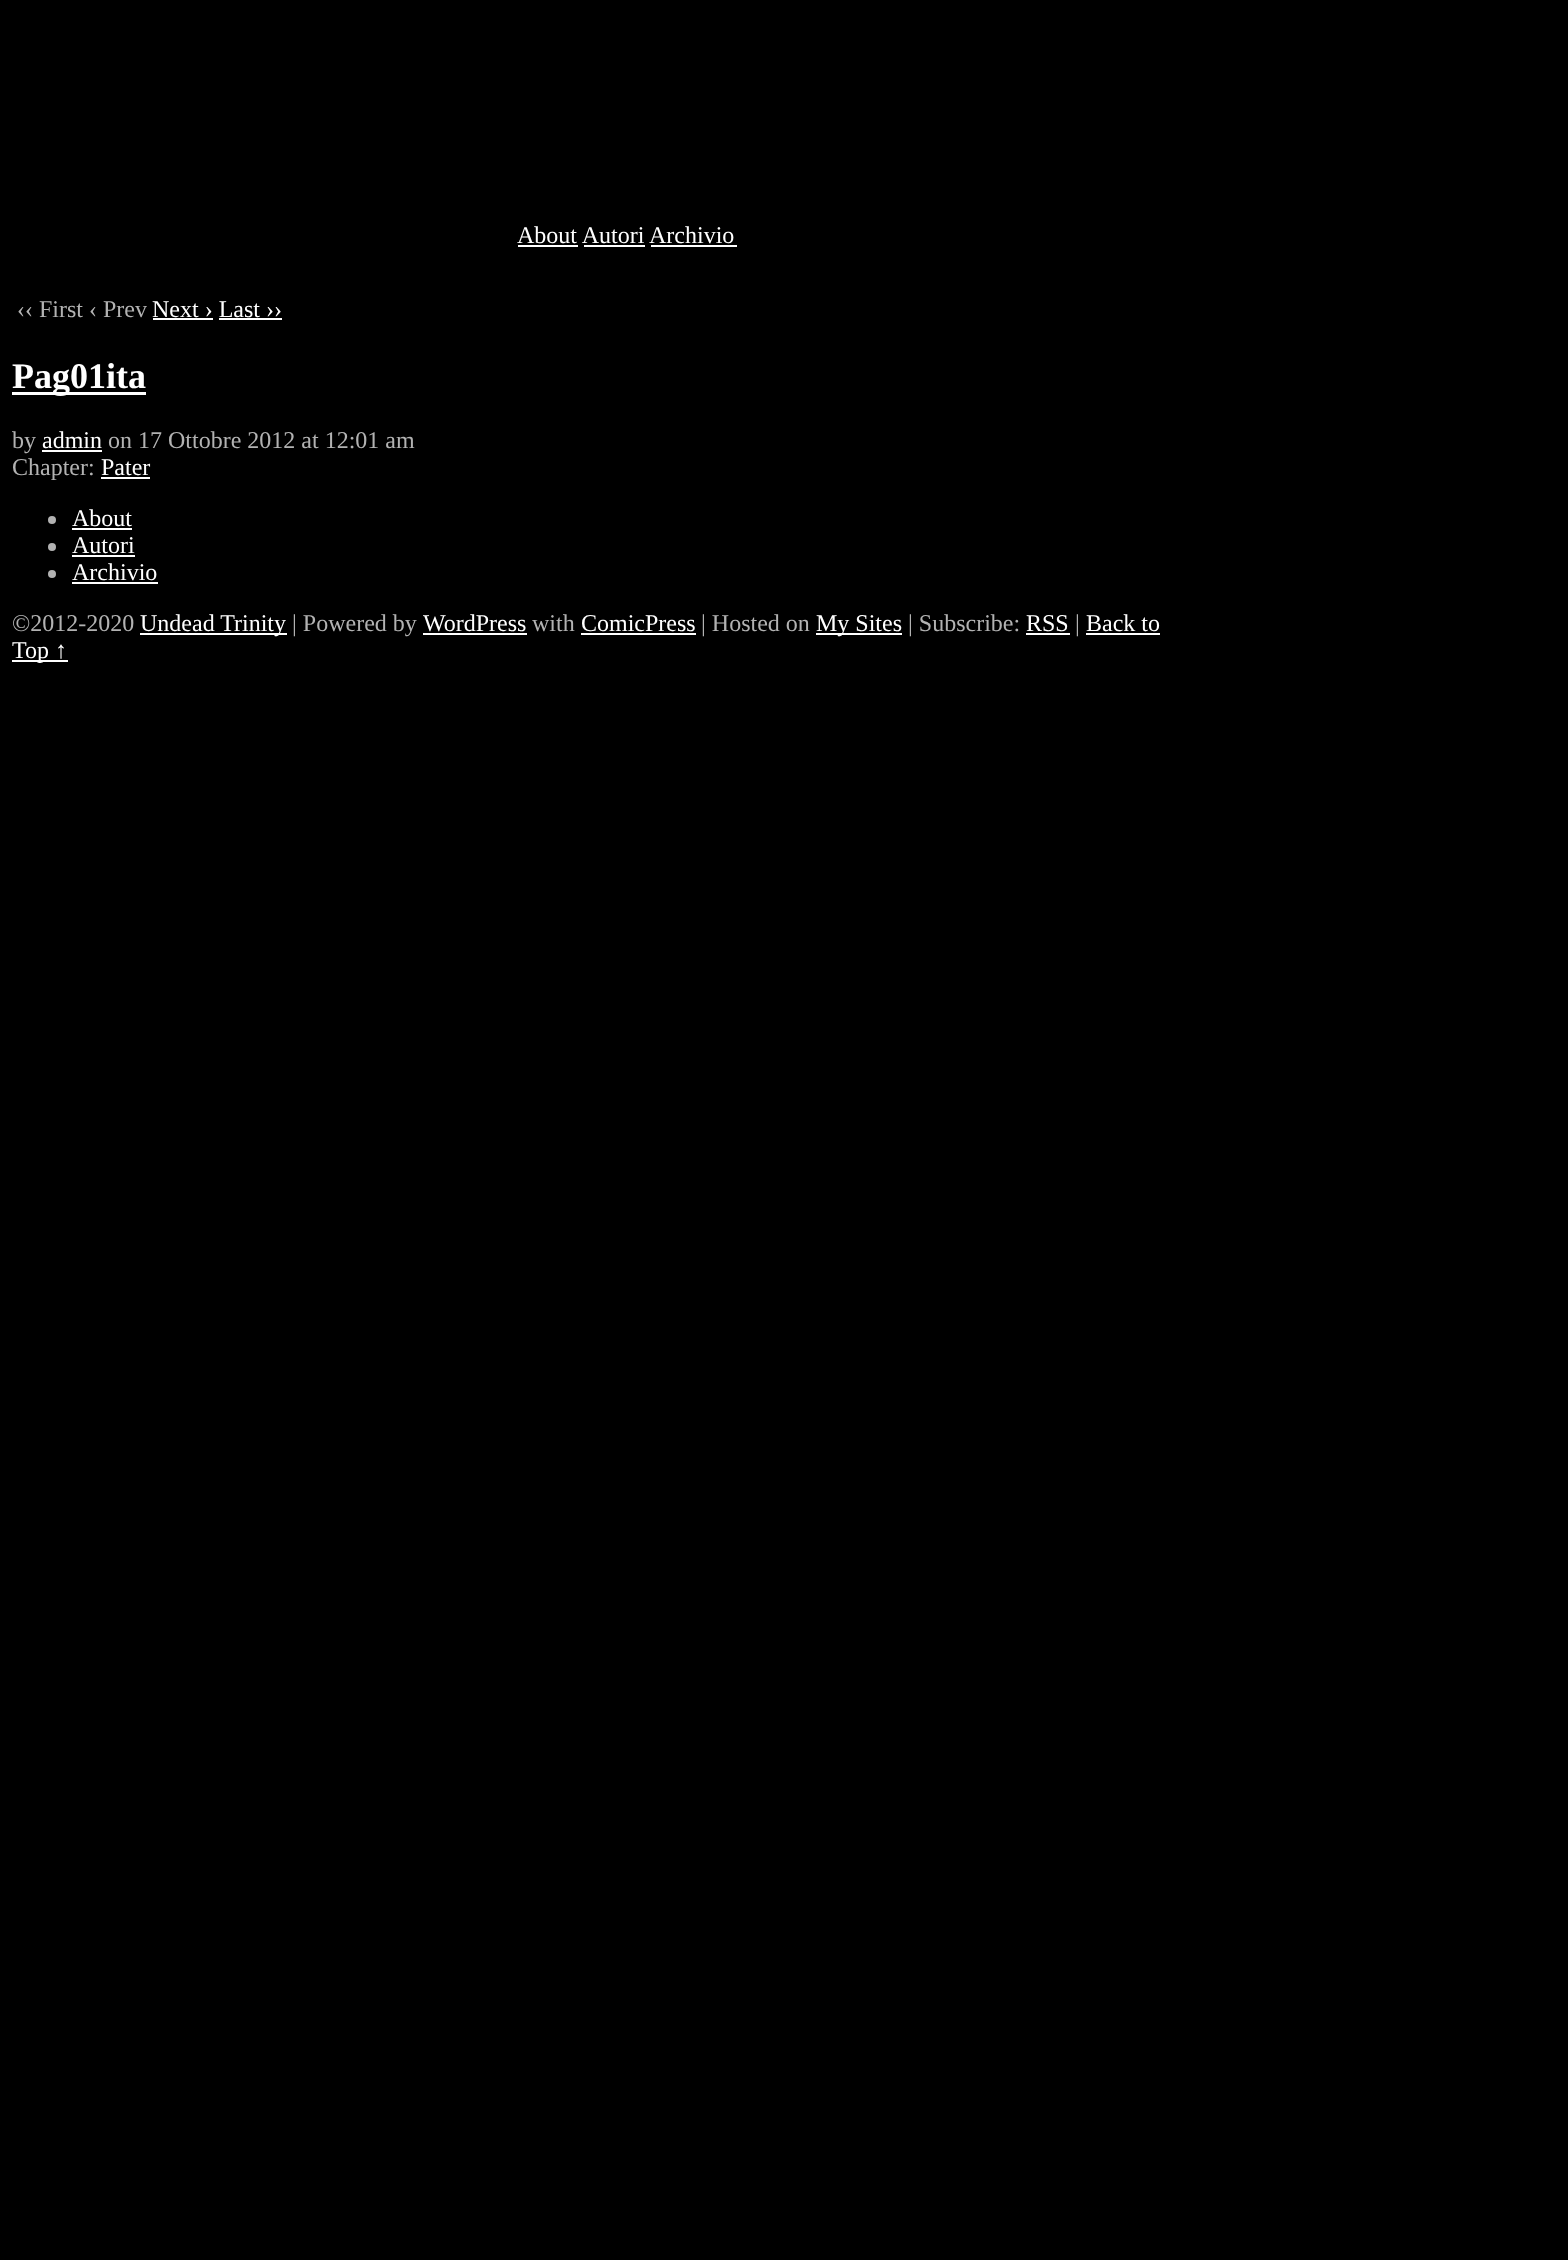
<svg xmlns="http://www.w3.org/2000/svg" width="1568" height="2260">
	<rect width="100%" height="100%" fill="#000000" />
	<text x="517" y="243" font-family="Liberation Serif" font-size="24" fill="#FFFFFF">About Autori Archivio</text>
	<rect x="518" y="245" width="60" height="2" fill="#FFFFFF" />
	<rect x="584" y="245" width="61" height="2" fill="#FFFFFF" />
	<rect x="651" y="245" width="86" height="2" fill="#FFFFFF" />
	<text x="17" y="317" font-family="Liberation Serif" font-size="24" fill="#B2B2B2">‹‹ First ‹ Prev</text>
	<text x="152" y="317" font-family="Liberation Serif" font-size="24" fill="#FFFFFF">Next › Last ››</text>
	<rect x="153" y="318" width="60" height="2" fill="#FFFFFF" />
	<rect x="219" y="318" width="63" height="2" fill="#FFFFFF" />
	<rect x="12" y="392" width="134" height="3" fill="#FFFFFF" />
	<text x="12" y="388" font-family="Liberation Serif" font-size="36" font-weight="700" fill="#FFFFFF">Pag01ita</text>
	<text x="12" y="448" font-family="Liberation Serif" font-size="24" fill="#B2B2B2">by</text>
	<text x="42" y="448" font-family="Liberation Serif" font-size="24" fill="#FFFFFF">admin</text>
	<rect x="42" y="450" width="60" height="2" fill="#FFFFFF" />
	<g font-family="Liberation Serif" font-size="24" fill="#B2B2B2">
		<text x="108" y="448">on 17 Ottobre 2012 at 12:01 am</text>
		<text x="12" y="475">Chapter:</text>
	</g>
	<text x="101" y="475" font-family="Liberation Serif" font-size="24" fill="#FFFFFF">Pater</text>
	<rect x="101" y="477" width="49" height="2" fill="#FFFFFF" />
	<circle cx="52" cy="520" r="4" fill="#B2B2B2" />
	<text x="72" y="526" font-family="Liberation Serif" font-size="24" fill="#FFFFFF">About</text>
	<rect x="72" y="528" width="60" height="2" fill="#FFFFFF" />
	<circle cx="52" cy="547" r="4" fill="#B2B2B2" />
	<text x="72" y="553" font-family="Liberation Serif" font-size="24" fill="#FFFFFF">Autori</text>
	<rect x="72" y="555" width="63" height="2" fill="#FFFFFF" />
	<circle cx="52" cy="574" r="4" fill="#B2B2B2" />
	<text x="72" y="580" font-family="Liberation Serif" font-size="24" fill="#FFFFFF">Archivio</text>
	<rect x="72" y="582" width="86" height="2" fill="#FFFFFF" />
	<text x="12" y="631" font-family="Liberation Serif" font-size="24" fill="#B2B2B2">©2012-2020</text>
	<rect x="140" y="633" width="147" height="2" fill="#FFFFFF" />
	<text x="140" y="631" font-family="Liberation Serif" font-size="24" fill="#FFFFFF">Undead Trinity</text>
	<text x="292" y="631" font-family="Liberation Serif" font-size="24" fill="#B2B2B2">| Powered by</text>
	<text x="423" y="631" font-family="Liberation Serif" font-size="24" fill="#FFFFFF">WordPress</text>
	<rect x="423" y="633" width="104" height="2" fill="#FFFFFF" />
	<text x="532" y="631" font-family="Liberation Serif" font-size="24" fill="#B2B2B2">with</text>
	<text x="581" y="631" font-family="Liberation Serif" font-size="24" fill="#FFFFFF">ComicPress</text>
	<rect x="581" y="633" width="115" height="2" fill="#FFFFFF" />
	<text x="701" y="631" font-family="Liberation Serif" font-size="24" fill="#B2B2B2">| Hosted on</text>
	<rect x="816" y="633" width="86" height="2" fill="#FFFFFF" />
	<text x="816" y="631" font-family="Liberation Serif" font-size="24" fill="#FFFFFF">My Sites</text>
	<text x="908" y="631" font-family="Liberation Serif" font-size="24" fill="#B2B2B2">| Subscribe:</text>
	<text x="1026" y="631" font-family="Liberation Serif" font-size="24" fill="#FFFFFF">RSS</text>
	<rect x="1026" y="633" width="44" height="2" fill="#FFFFFF" />
	<text x="1075" y="631" font-family="Liberation Serif" font-size="24" fill="#B2B2B2">|</text>
	<text x="1086" y="631" font-family="Liberation Serif" font-size="24" fill="#FFFFFF">Back to</text>
	<rect x="1086" y="633" width="74" height="2" fill="#FFFFFF" />
	<rect x="12" y="660" width="56" height="2" fill="#FFFFFF" />
	<text x="12" y="658" font-family="Liberation Serif" font-size="24" fill="#FFFFFF">Top ↑</text>
</svg>
